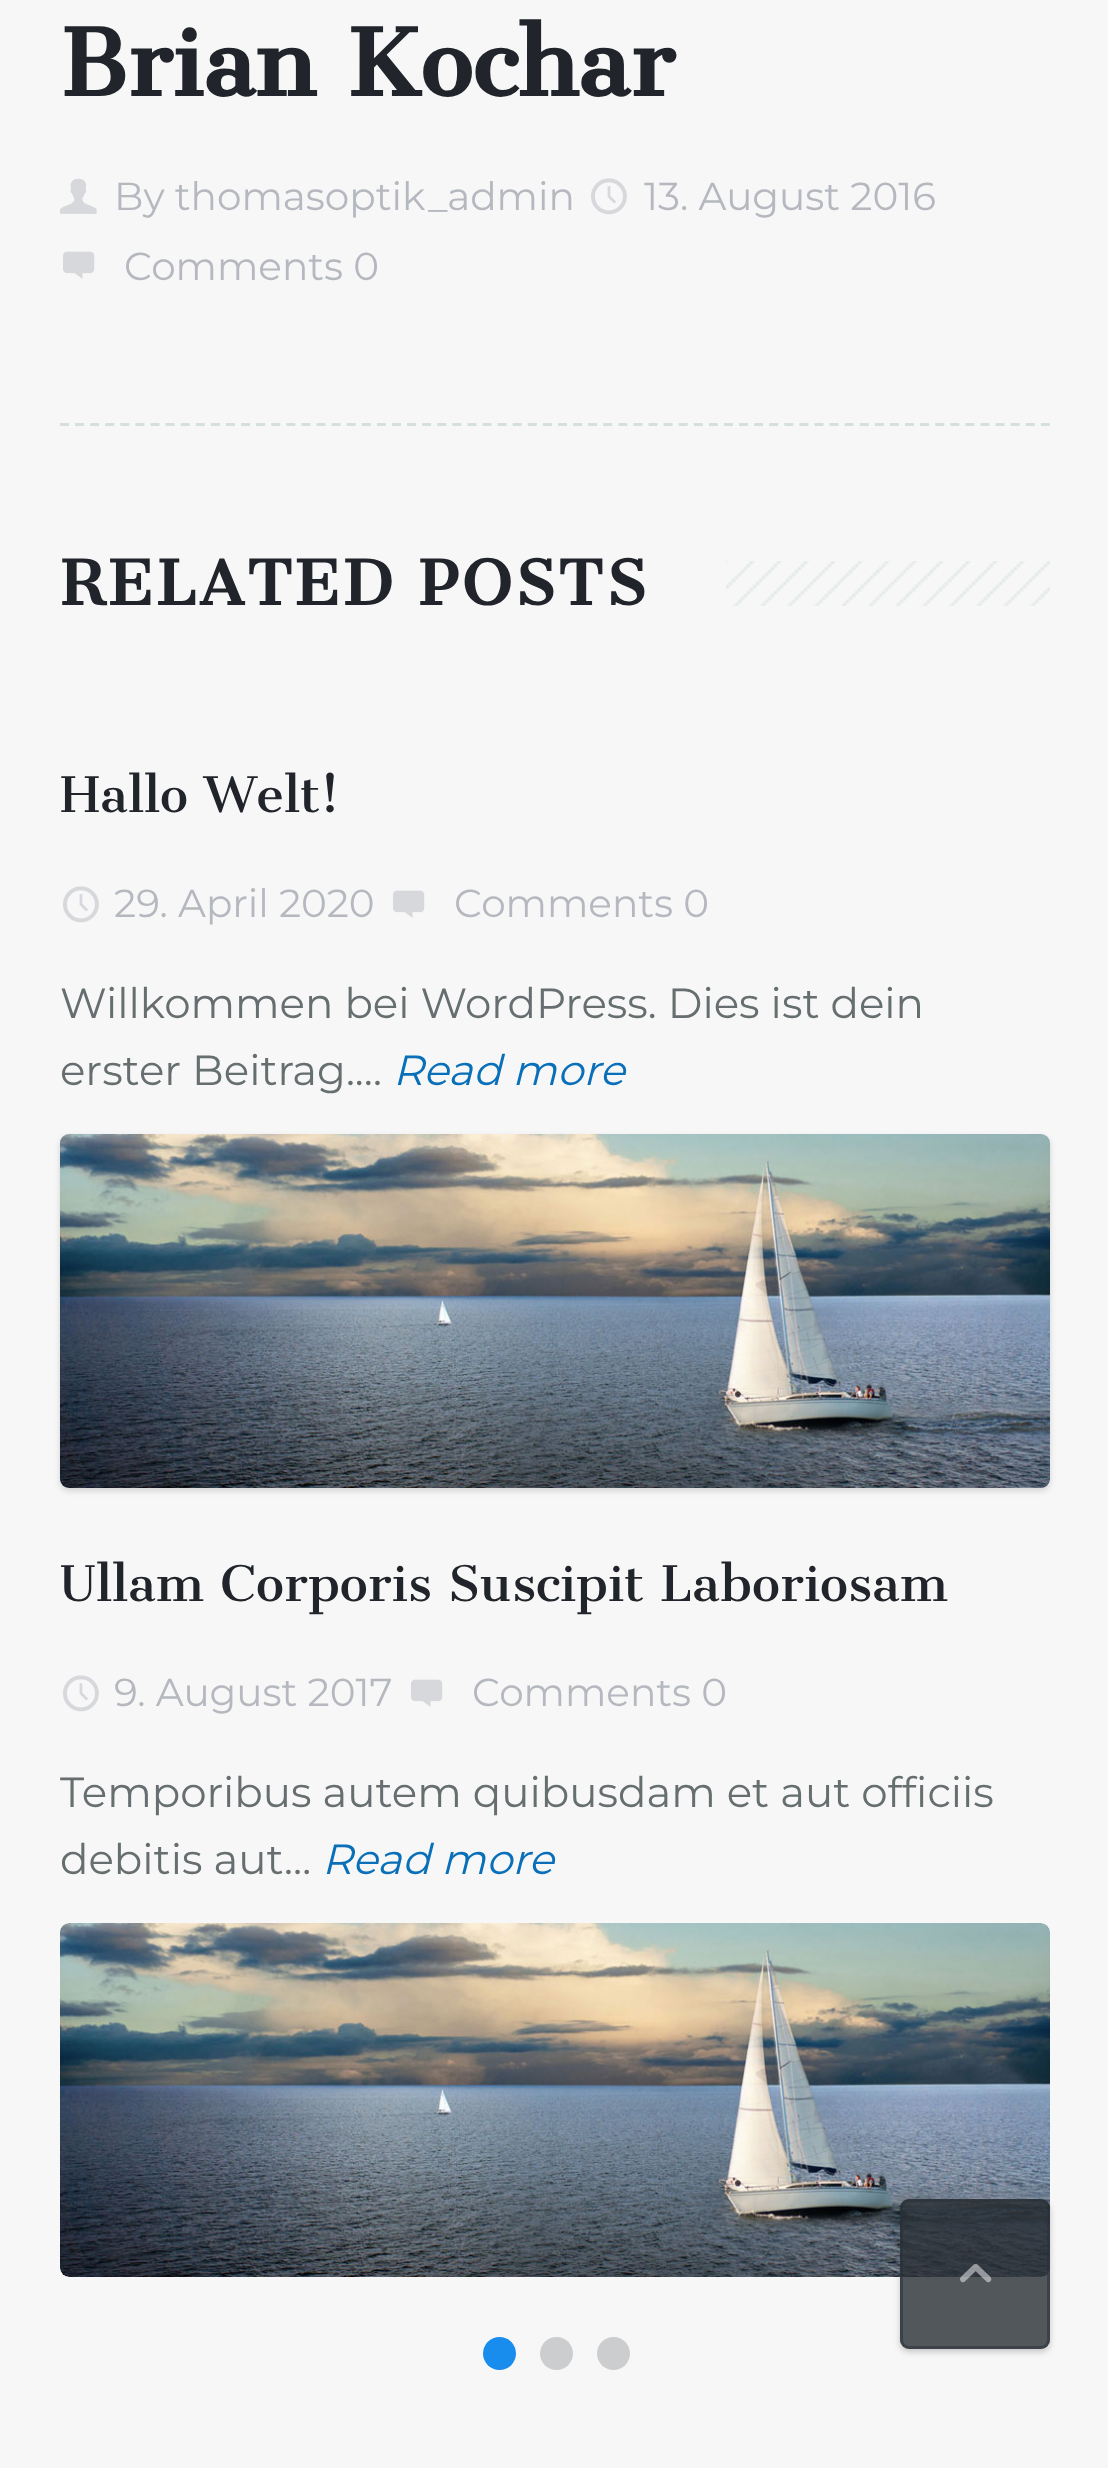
<svg xmlns="http://www.w3.org/2000/svg" width="1108" height="2468">
	<defs>
		<clipPath id="clip1"><path d="M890 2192H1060V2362H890ZM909 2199H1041C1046 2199 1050 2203 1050 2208V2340C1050 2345 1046 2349 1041 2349H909C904 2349 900 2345 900 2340V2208C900 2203 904 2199 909 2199Z" clip-rule="evenodd" /></clipPath>
	</defs>
	<rect width="100%" height="100%" fill="#F7F7F7" />
	<text x="60" y="96" font-family="Cantata One" font-size="90" font-weight="700" fill="#21252B">Brian Kochar</text>
	<image x="60" y="178" width="37" height="36" href="assets/img1.png" />
	<text x="114" y="210" font-family="Montserrat" font-size="39" fill="#B5B8BF">By thomasoptik_admin</text>
	<image x="591" y="178" width="36" height="37" href="assets/img2.png" />
	<text x="644" y="210" font-family="Montserrat" font-size="39" fill="#B5B8BF">13. August 2016</text>
	<image x="63" y="251" width="32" height="28" href="assets/img3.png" />
	<text x="124" y="280" font-family="Montserrat" font-size="39" fill="#B5B8BF">Comments 0</text>
	<path d="M60 424.5H1050" fill="none" stroke="#D6DFDF" stroke-width="3" stroke-dasharray="9 6.09" />
	<text x="60" y="605" font-family="Cantata One" font-size="60" font-weight="700" letter-spacing="3" fill="#21252B">RELATED POSTS</text>
	<image x="726" y="561" width="324" height="45" href="assets/img4.png" />
	<text x="60" y="812" font-family="Cantata One" font-size="48" fill="#21252B">Hallo Welt!</text>
	<image x="63" y="886" width="36" height="37" href="assets/img2.png" />
	<text x="114" y="917" font-family="Montserrat" font-size="39" fill="#B5B8BF">29. April 2020</text>
	<image x="393" y="890" width="32" height="28" href="assets/img3.png" />
	<text x="454" y="917" font-family="Montserrat" font-size="39" fill="#B5B8BF">Comments 0</text>
	<g font-family="Montserrat" font-size="42" fill="#666E70">
		<text x="60" y="1018">Willkommen bei WordPress. Dies ist dein</text>
		<text x="60" y="1085">erster Beitrag.…</text>
	</g>
	<text x="393" y="1085" font-family="Montserrat" font-size="42" font-style="italic" fill="#086FB8">Read more</text>
	<rect x="60" y="1137" width="990" height="354" rx="9" fill="#000000" fill-opacity="0.07" filter="blur(3px)" />
	<rect x="60" y="1137" width="990" height="354" rx="9" fill="#000000" fill-opacity="0.07" filter="blur(3px)" />
	<image x="60" y="1134" width="990" height="354" href="assets/img5.png" />
	<text x="60" y="1601" font-family="Cantata One" font-size="48" fill="#21252B">Ullam Corporis Suscipit Laboriosam</text>
	<image x="63" y="1675" width="36" height="37" href="assets/img2.png" />
	<text x="114" y="1706" font-family="Montserrat" font-size="39" fill="#B5B8BF">9. August 2017</text>
	<image x="411" y="1679" width="32" height="28" href="assets/img3.png" />
	<text x="472" y="1706" font-family="Montserrat" font-size="39" fill="#B5B8BF">Comments 0</text>
	<g font-family="Montserrat" font-size="42" fill="#666E70">
		<text x="60" y="1807">Temporibus autem quibusdam et aut officiis</text>
		<text x="60" y="1874">debitis aut…</text>
	</g>
	<text x="322" y="1874" font-family="Montserrat" font-size="42" font-style="italic" fill="#086FB8">Read more</text>
	<image x="60" y="1923" width="990" height="354" href="assets/img6.png" />
	<circle cx="499.5" cy="2353.5" r="16.5" fill="#188DED" />
	<circle cx="556.5" cy="2353.5" r="16.5" fill="#CCCDCE" />
	<circle cx="613.5" cy="2353.5" r="16.5" fill="#CCCDCE" />
	<g clip-path="url(#clip1)">
		<rect x="900" y="2202" width="150" height="150" rx="9" fill="#000000" fill-opacity="0.2" filter="blur(3px)" />
	</g>
	<rect x="900" y="2199" width="150" height="150" rx="9" fill="#282E35" fill-opacity="0.8" />
	<rect x="901.5" y="2200.5" width="147" height="147" rx="7.5" fill="none" stroke="#282E35" stroke-opacity="0.5" stroke-width="3" />
	<image x="960" y="2264" width="32" height="19" href="assets/img7.png" />
</svg>
